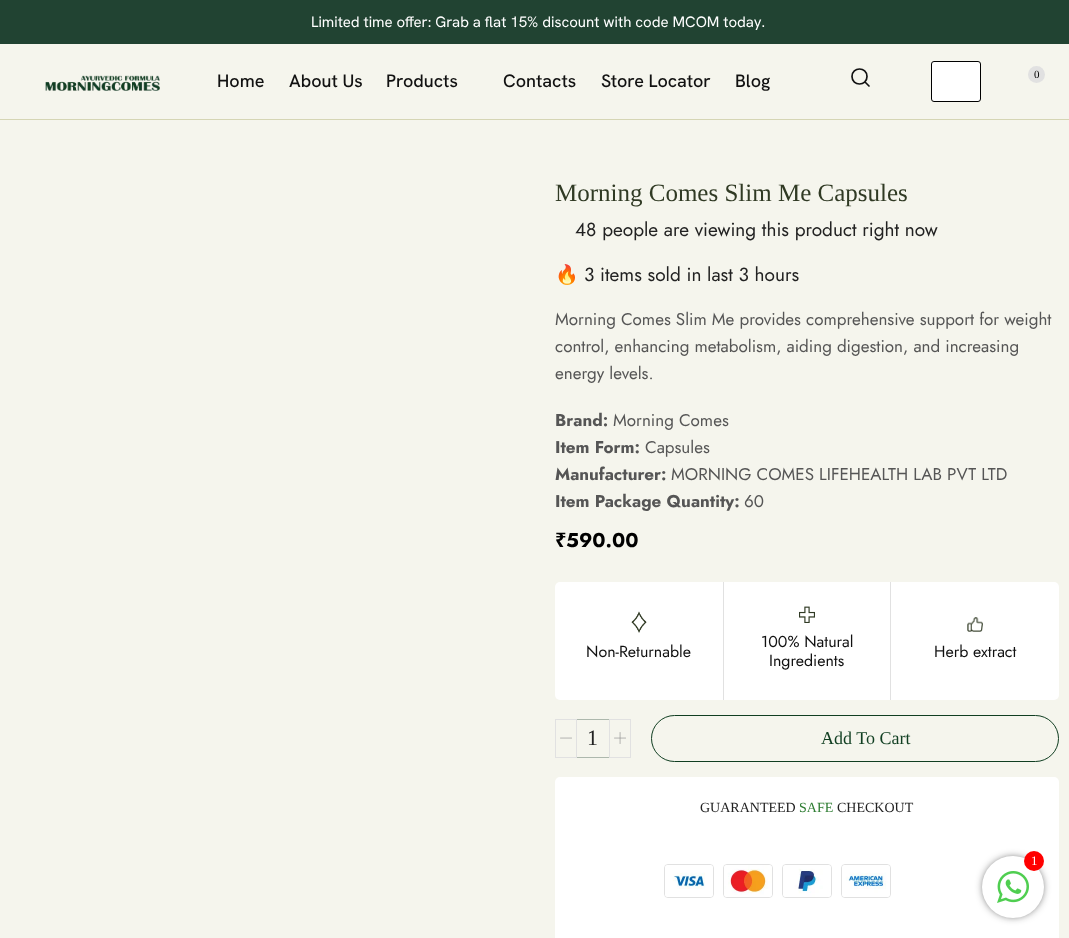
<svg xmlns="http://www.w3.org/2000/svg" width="1069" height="938">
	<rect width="100%" height="100%" fill="#F5F5ED" />
	<rect x="0" y="0" width="1069" height="44" fill="#214332" />
	<text x="311" y="27" font-family="Hanken Grotesk" font-size="15" fill="#FFFFFF">Limited time offer: Grab a flat 15% discount with code MCOM today.</text>
	<rect x="0" y="119" width="1069" height="1" fill="#D5D5B4" />
	<image x="45" y="75" width="115" height="16" href="assets/img1.png" />
	<g font-family="Hanken Grotesk" font-size="18" font-weight="500" fill="#111111">
		<text x="217" y="87">Home</text>
		<text x="289" y="87">About Us</text>
		<text x="386" y="87">Products</text>
		<text x="503" y="87">Contacts</text>
		<text x="601" y="87">Store Locator</text>
		<text x="735" y="87">Blog</text>
	</g>
	<path d="M869 86L865 82M867 76.5C867 86.5 852 86.5 852 76.5C852 66.5 867 66.5 867 76.5Z" fill="none" stroke="#111111" stroke-width="1.7" stroke-linecap="round" />
	<rect x="931.5" y="61.5" width="49" height="40" rx="2.5" fill="#FFFFFF" stroke="#000000" />
	<circle cx="1036.5" cy="74.5" r="8.5" fill="#E1E1E1" />
	<text x="1034" y="78" font-family="Liberation Serif" font-size="11" fill="#000000">0</text>
	<text x="555" y="201" font-family="Liberation Serif" font-size="25" fill="#303A24">Morning Comes Slim Me Capsules</text>
	<text x="575" y="236" font-family="Jost" font-size="19" fill="#222222">48 people are viewing this product right now</text>
	<text x="555" y="281" font-family="Noto Color Emoji" font-size="19" fill="#222222">🔥</text>
	<text x="584" y="281" font-family="Jost" font-size="19" fill="#222222">3 items sold in last 3 hours</text>
	<g font-family="Jost" font-size="17" fill="#555555">
		<text x="555" y="325">Morning Comes Slim Me provides comprehensive support for weight</text>
		<text x="555" y="352">control, enhancing metabolism, aiding digestion, and increasing</text>
		<text x="555" y="379">energy levels.</text>
	</g>
	<text x="555" y="426" font-family="Jost" font-size="17" font-weight="700" fill="#555555">Brand:</text>
	<text x="613" y="426" font-family="Jost" font-size="17" fill="#555555">Morning Comes</text>
	<text x="555" y="453" font-family="Jost" font-size="17" font-weight="700" fill="#555555">Item Form:</text>
	<text x="645" y="453" font-family="Jost" font-size="17" fill="#555555">Capsules</text>
	<text x="555" y="480" font-family="Jost" font-size="17" font-weight="700" fill="#555555">Manufacturer:</text>
	<text x="671" y="480" font-family="Jost" font-size="17" fill="#555555">MORNING COMES LIFEHEALTH LAB PVT LTD</text>
	<text x="555" y="507" font-family="Jost" font-size="17" font-weight="700" fill="#555555">Item Package Quantity:</text>
	<text x="744" y="507" font-family="Jost" font-size="17" fill="#555555">60</text>
	<text x="555" y="547" font-family="Noto Sans" font-size="20" font-weight="700" fill="#000000">₹</text>
	<text x="566" y="547" font-family="Jost" font-size="20" font-weight="700" fill="#000000">590.00</text>
	<rect x="555" y="582" width="504" height="118" rx="5" fill="#FFFFFF" />
	<image x="631" y="611" width="16" height="22" href="assets/img2.png" />
	<text x="586" y="657" font-family="Jost" font-size="16" fill="#111111">Non-Returnable</text>
	<rect x="890" y="582" width="1" height="118" fill="#E1E1E1" />
	<rect x="723" y="582" width="1" height="118" fill="#E1E1E1" />
	<image x="799" y="606" width="16" height="17" href="assets/img3.png" />
	<g font-family="Jost" font-size="16" fill="#111111">
		<text x="761" y="647">100% Natural</text>
		<text x="769" y="666">Ingredients</text>
	</g>
	<image x="967" y="617" width="16" height="15" href="assets/img4.png" />
	<text x="934" y="657" font-family="Jost" font-size="16" fill="#111111">Herb extract</text>
	<rect x="555.5" y="719.5" width="21" height="38" fill="none" stroke="#E1E1E1" />
	<image x="560" y="737" width="12" height="2" href="assets/img5.png" />
	<rect x="577" y="719" width="32" height="1" fill="#ADB8AD" />
	<rect x="577" y="757" width="32" height="1" fill="#ADB8AD" />
	<text x="587" y="745" font-family="Liberation Serif" font-size="22" fill="#222222">1</text>
	<rect x="609.5" y="719.5" width="21" height="38" fill="none" stroke="#E1E1E1" />
	<image x="614" y="732" width="12" height="12" href="assets/img6.png" />
	<rect x="651.5" y="715.5" width="407" height="46" rx="23" fill="none" stroke="#103E21" />
	<text x="821" y="744" font-family="Liberation Serif" font-size="18" fill="#103E21">Add To Cart</text>
	<rect x="555" y="777" width="504" height="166" rx="5" fill="#FFFFFF" />
	<text x="700" y="812" font-family="Liberation Serif" font-size="14" fill="#222222">GUARANTEED</text>
	<text x="799" y="812" font-family="Liberation Serif" font-size="14" fill="#2E7D32">SAFE</text>
	<text x="837" y="812" font-family="Liberation Serif" font-size="14" fill="#222222">CHECKOUT</text>
	<rect x="664.5" y="864.5" width="49" height="33" rx="3.5" fill="none" stroke="#E1E1E1" />
	<image x="665" y="865" width="48" height="32" href="assets/img7.png" />
	<rect x="723.5" y="864.5" width="49" height="33" rx="3.5" fill="none" stroke="#E1E1E1" />
	<image x="724" y="865" width="48" height="32" href="assets/img8.png" />
	<rect x="782.5" y="864.5" width="49" height="33" rx="3.5" fill="none" stroke="#E1E1E1" />
	<image x="783" y="865" width="48" height="32" href="assets/img9.png" />
	<rect x="841.5" y="864.5" width="49" height="33" rx="3.5" fill="none" stroke="#E1E1E1" />
	<image x="842" y="865" width="48" height="32" href="assets/img10.png" />
	<rect x="985" y="859" width="56" height="56" rx="28" fill="#111111" filter="blur(5px)" />
	<circle cx="1013" cy="887" r="31" fill="#FFFFFF" />
	<circle cx="1034" cy="861" r="10" fill="#FF0000" />
	<text x="1031" y="865" font-family="Liberation Serif" font-size="13" fill="#FFFFFF">1</text>
	<image x="997" y="871" width="32" height="32" href="assets/img11.png" />
</svg>
